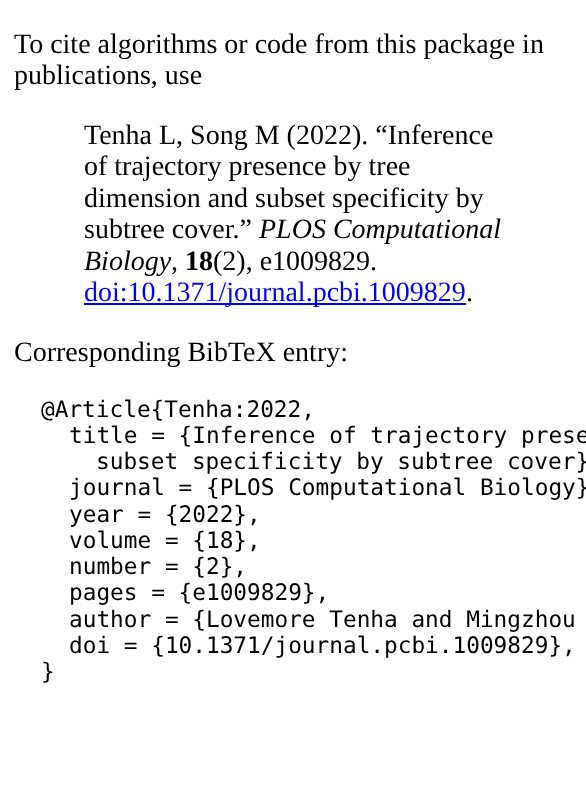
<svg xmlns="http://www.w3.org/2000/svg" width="586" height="793">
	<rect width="100%" height="100%" fill="#FFFFFF" />
	<g font-family="Liberation Serif" font-size="28" fill="#000000">
		<text x="14" y="53">To cite algorithms or code from this package in</text>
		<text x="14" y="84">publications, use</text>
		<text x="84" y="144">Tenha L, Song M (2022). “Inference</text>
		<text x="84" y="175">of trajectory presence by tree</text>
		<text x="84" y="207">dimension and subset specificity by</text>
		<text x="84" y="238">subtree cover.”</text>
	</g>
	<g font-family="Liberation Serif" font-size="28" font-style="italic" fill="#000000">
		<text x="259" y="238">PLOS Computational</text>
		<text x="84" y="270">Biology</text>
	</g>
	<text x="171" y="270" font-family="Liberation Serif" font-size="28" fill="#000000">,</text>
	<text x="185" y="270" font-family="Liberation Serif" font-size="28" font-weight="700" fill="#000000">18</text>
	<text x="213" y="270" font-family="Liberation Serif" font-size="28" fill="#000000">(2), e1009829.</text>
	<rect x="84" y="303" width="382" height="2" fill="#0000FF" />
	<text x="84" y="301" font-family="Liberation Serif" font-size="28" fill="#0000FF">doi:10.1371/journal.pcbi.1009829</text>
	<g font-family="Liberation Serif" font-size="28" fill="#000000">
		<text x="466" y="301">.</text>
		<text x="14" y="361">Corresponding BibTeX entry:</text>
	</g>
	<g font-family="DejaVu Sans Mono" font-size="22.75" fill="#000000">
		<text x="41" y="417">@Article{Tenha:2022,</text>
		<text x="69" y="443">title = {Inference of trajectory prese</text>
		<text x="96" y="469">subset specificity by subtree cover}</text>
		<text x="69" y="495">journal = {PLOS Computational Biology}</text>
		<text x="69" y="522">year = {2022},</text>
		<text x="69" y="548">volume = {18},</text>
		<text x="69" y="574">number = {2},</text>
		<text x="69" y="600">pages = {e1009829},</text>
		<text x="69" y="627">author = {Lovemore Tenha and Mingzhou</text>
		<text x="69" y="653">doi = {10.1371/journal.pcbi.1009829},</text>
		<text x="41" y="679">}</text>
	</g>
</svg>
